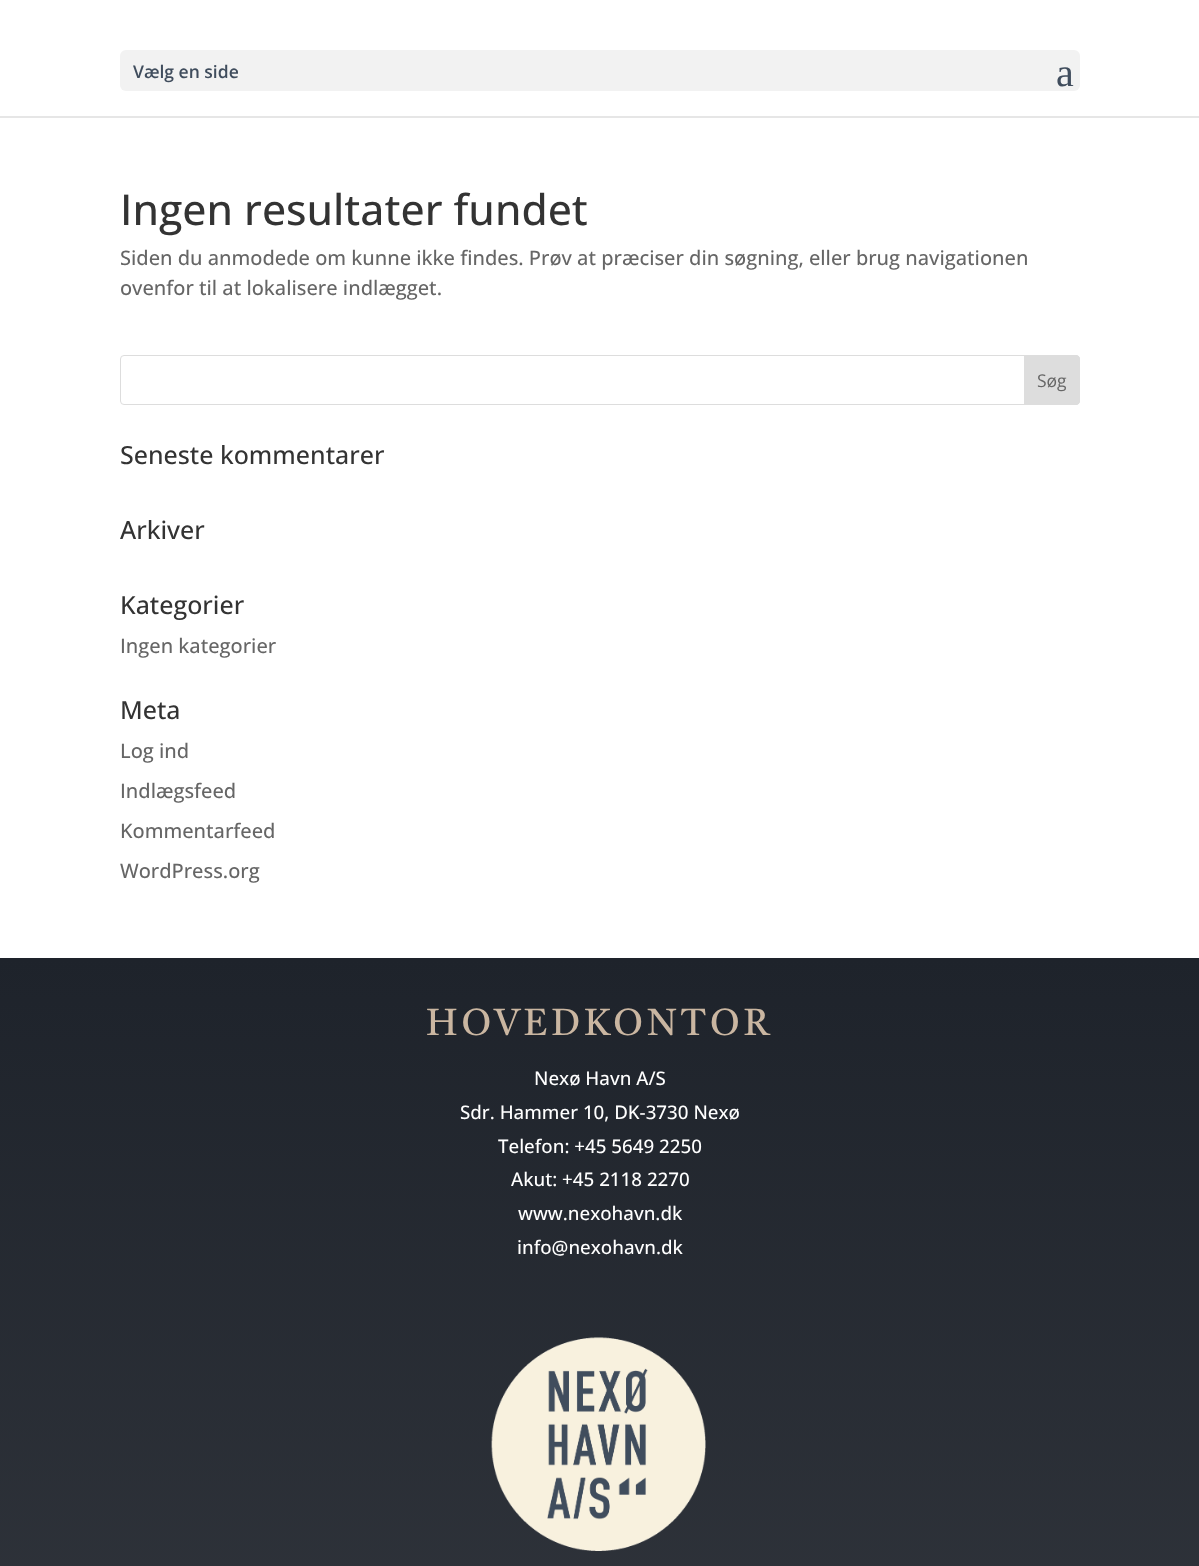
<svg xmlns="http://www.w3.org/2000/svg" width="1199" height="1566">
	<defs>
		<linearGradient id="g1" gradientUnits="userSpaceOnUse" x1="600" y1="958" x2="600" y2="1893"><stop offset="0" stop-color="#1E232B" /><stop offset="1" stop-color="#353940" /></linearGradient>
	</defs>
	<rect width="100%" height="100%" fill="#FFFFFF" />
	<rect x="0" y="116" width="1199" height="2" fill="#E6E6E6" />
	<rect x="120" y="50" width="960" height="41" rx="6" fill="#F2F2F2" />
	<text x="133" y="78" font-family="Open Sans" font-size="17.5" font-weight="600" fill="#404D5D">Vælg en side</text>
	<text x="1056" y="86" font-family="Liberation Serif" font-size="40" fill="#404D5D">a</text>
	<text x="120" y="225" font-family="Open Sans" font-size="42.5" font-weight="500" fill="#333333">Ingen resultater fundet</text>
	<g font-family="Open Sans" font-size="20" font-weight="500" fill="#666666">
		<text x="120" y="265">Siden du anmodede om kunne ikke findes. Prøv at præciser din søgning, eller brug navigationen</text>
		<text x="120" y="295">ovenfor til at lokalisere indlægget.</text>
	</g>
	<rect x="120.5" y="355.5" width="959" height="49" rx="3.5" fill="none" stroke="#DDDDDD" />
	<path d="M1024.5 355.5H1076C1078 355.5 1079.5 357 1079.5 359V401C1079.5 403 1078 404.5 1076 404.5H1024.5Z" fill="#DDDDDD" stroke="#DDDDDD" />
	<text x="1037" y="387" font-family="Open Sans" font-size="17.5" fill="#666666">Søg</text>
	<g font-family="Open Sans" font-size="25" font-weight="500" fill="#333333">
		<text x="120" y="464">Seneste kommentarer</text>
		<text x="120" y="539">Arkiver</text>
		<text x="120" y="614">Kategorier</text>
	</g>
	<text x="120" y="653" font-family="Open Sans" font-size="20" font-weight="500" fill="#666666">Ingen kategorier</text>
	<text x="120" y="719" font-family="Open Sans" font-size="25" font-weight="500" fill="#333333">Meta</text>
	<g font-family="Open Sans" font-size="20" font-weight="500" fill="#666666">
		<text x="120" y="758">Log ind</text>
		<text x="120" y="798">Indlægsfeed</text>
		<text x="120" y="838">Kommentarfeed</text>
		<text x="120" y="878">WordPress.org</text>
	</g>
	<rect x="0" y="958" width="1199" height="608" fill="url(#g1)" />
	<text x="426" y="1035" font-family="Tiro Kannada" font-size="37.5" letter-spacing="3.75" fill="#CAB6A1">HOVEDKONTOR</text>
	<g font-family="Open Sans" font-size="18.75" font-weight="500" fill="#FFFFFF">
		<text x="534" y="1085">Nexø Havn A/S</text>
		<text x="460" y="1119">Sdr. Hammer 10, DK-3730 Nexø</text>
		<text x="498" y="1153">Telefon: +45 5649 2250</text>
		<text x="511" y="1186">Akut: +45 2118 2270</text>
		<text x="518" y="1220">www.nexohavn.dk</text>
		<text x="517" y="1254">info@nexohavn.dk</text>
	</g>
	<image x="491" y="1337" width="215" height="214" href="assets/img1.png" />
</svg>
